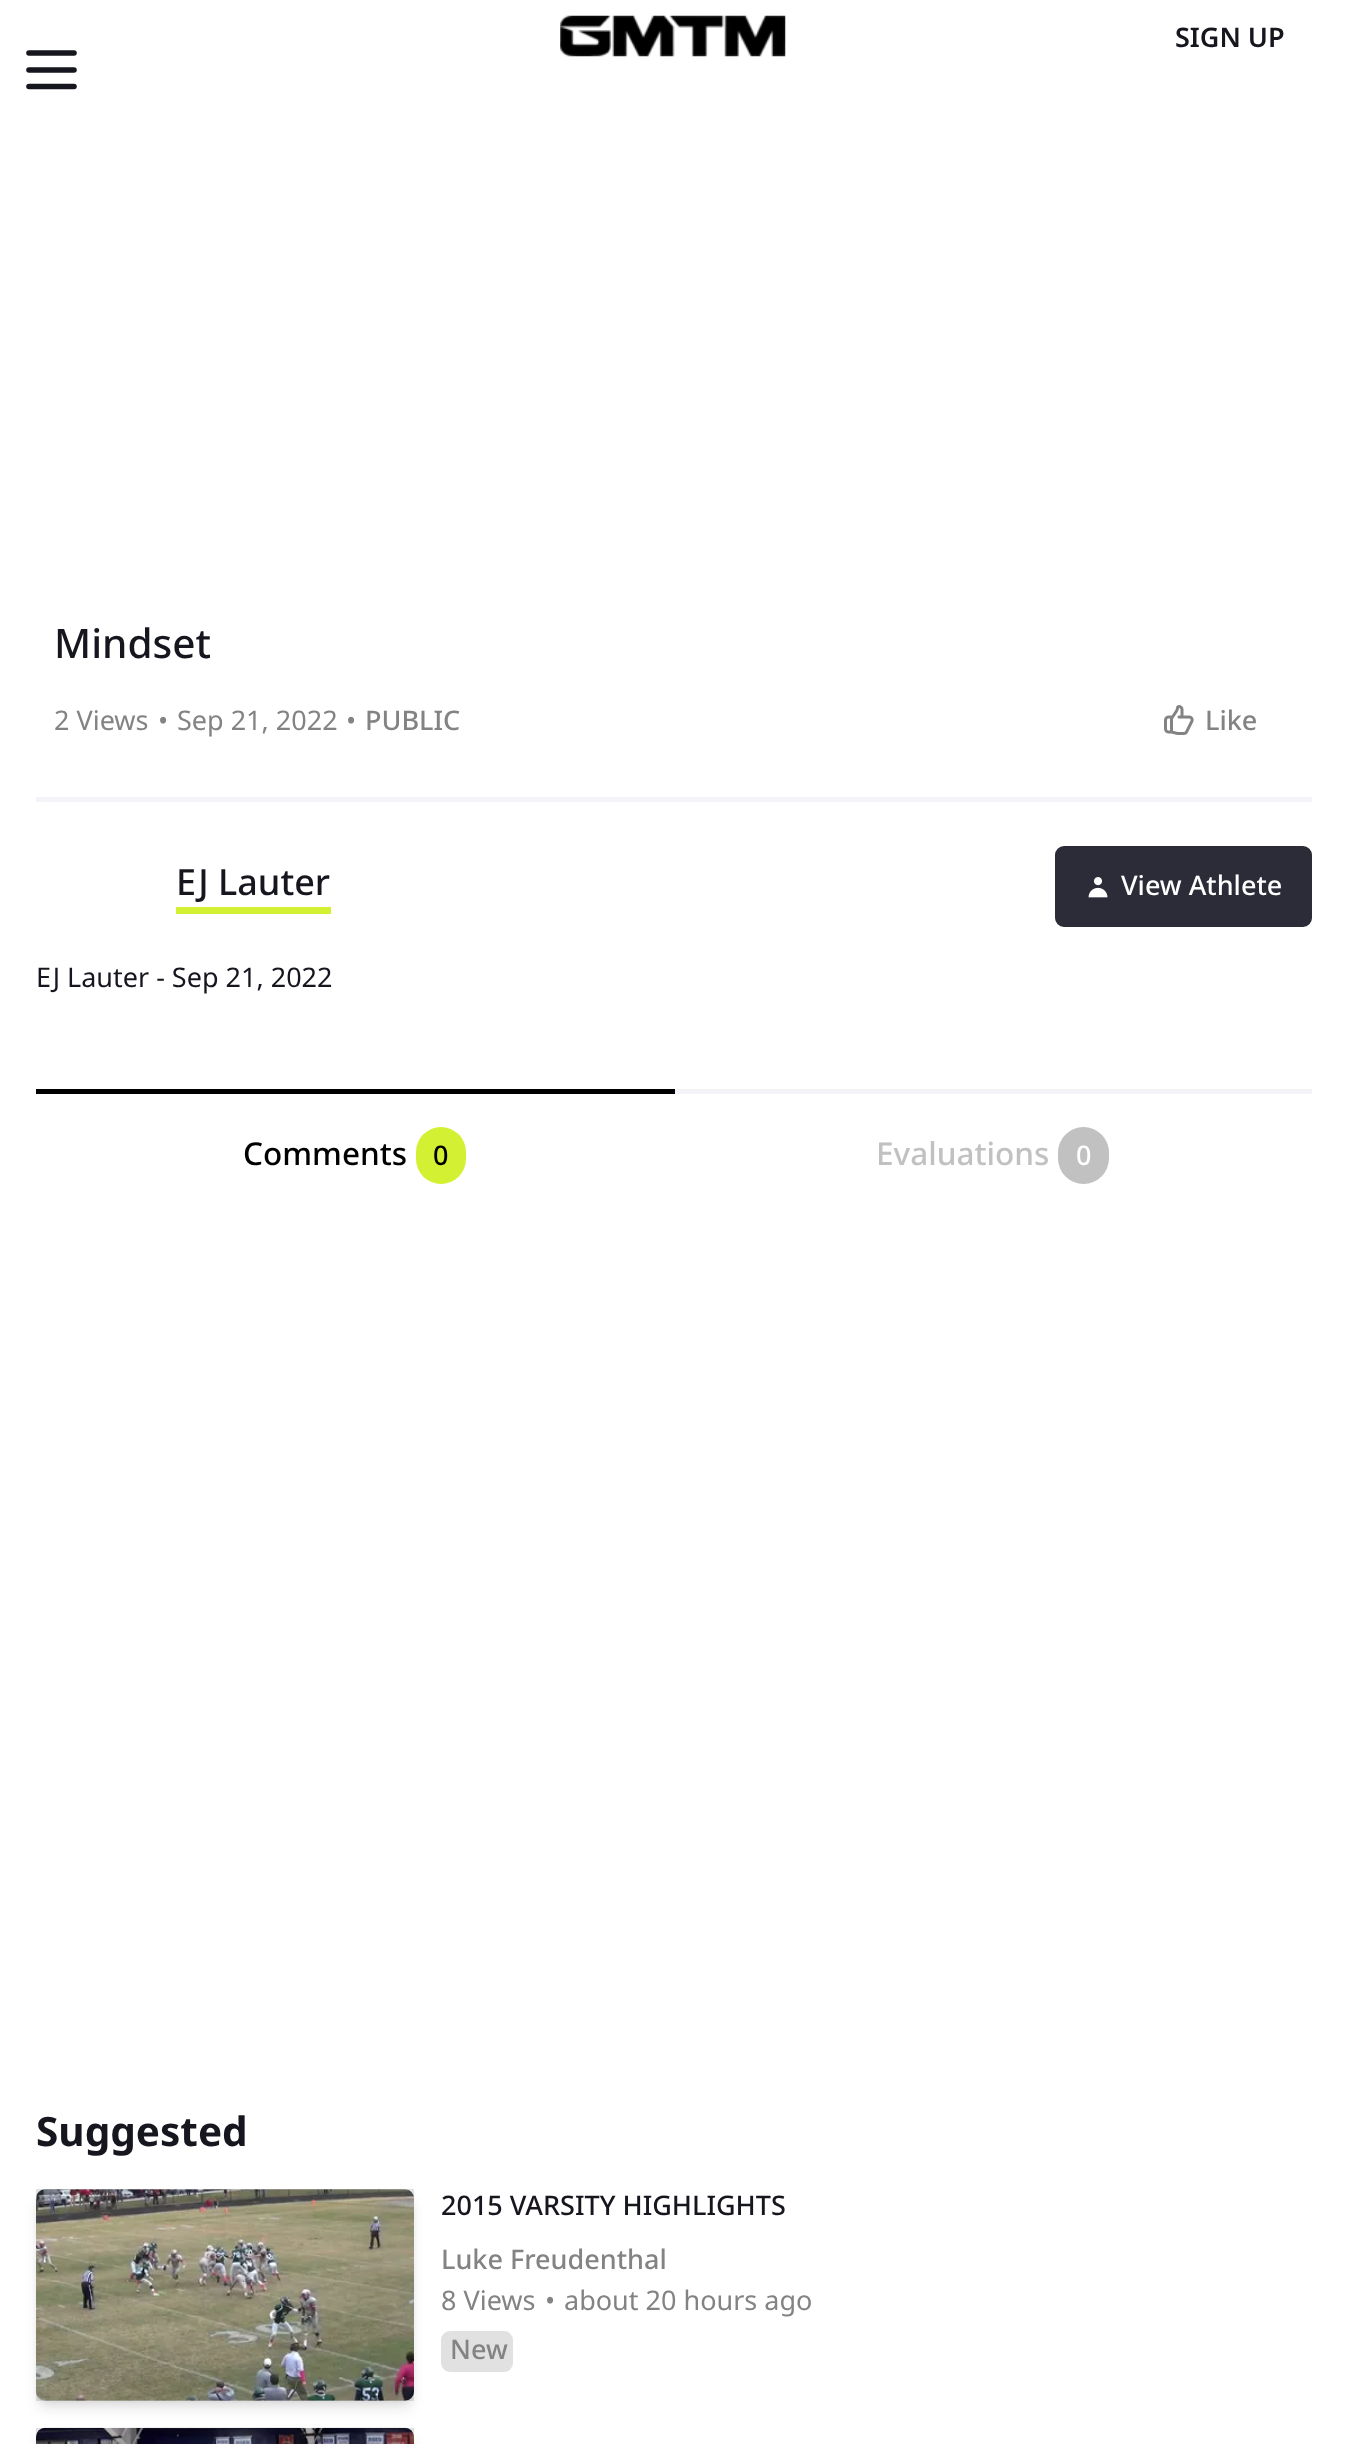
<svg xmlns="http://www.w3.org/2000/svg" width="1346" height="2444">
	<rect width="100%" height="100%" fill="#FFFFFF" />
	<image x="560" y="15" width="226" height="42" href="assets/img1.png" />
	<text x="1175" y="47" font-family="Noto Sans" font-size="27" font-weight="600" fill="#16161F">SIGN UP</text>
	<path d="M29 53H74M29 70H74M29 86.5H74" fill="none" stroke="#16161F" stroke-width="5.6" stroke-linecap="round" stroke-linejoin="round" />
	<rect x="36" y="797" width="1276" height="5" fill="#F4F4F8" />
	<text x="54" y="658" font-family="Noto Sans" font-size="40.5" font-weight="500" fill="#16161F">Mindset</text>
	<g font-family="Noto Sans" font-size="27" fill="#838383">
		<text x="54" y="730">2 Views</text>
		<text x="158" y="730">•</text>
		<text x="177" y="730">Sep 21, 2022</text>
		<text x="346" y="730">•</text>
	</g>
	<text x="365" y="730" font-family="Noto Sans" font-size="27" font-weight="500" fill="#838383">PUBLIC</text>
	<image x="1164" y="705" width="30" height="30" href="assets/img2.png" />
	<text x="1205" y="730" font-family="Noto Sans" font-size="27" font-weight="500" fill="#838383">Like</text>
	<text x="176" y="895" font-family="Noto Sans" font-size="36" font-weight="500" fill="#16161F">EJ Lauter</text>
	<rect x="176" y="907" width="155" height="7" fill="#D3F132" />
	<rect x="1056" y="847" width="255" height="79" rx="8" fill="#2C2C38" stroke="#2C2C38" stroke-width="2" />
	<image x="1088" y="877" width="20" height="21" href="assets/img3.png" />
	<text x="1121" y="895" font-family="Noto Sans" font-size="27" font-weight="500" fill="#FFFFFF">View Athlete</text>
	<text x="36" y="987" font-family="Noto Sans" font-size="27" fill="#16161F">EJ Lauter - Sep 21, 2022</text>
	<rect x="36" y="1089" width="639" height="5" fill="#000000" />
	<text x="243" y="1165" font-family="Noto Sans" font-size="31.5" font-weight="500" fill="#000000">Comments</text>
	<rect x="416" y="1127" width="50" height="57" rx="25" fill="#D3F132" />
	<text x="433" y="1165" font-family="Noto Sans" font-size="27" font-weight="500" fill="#000000">0</text>
	<rect x="675" y="1089" width="637" height="5" fill="#F4F4F8" />
	<text x="876" y="1165" font-family="Noto Sans" font-size="31.5" font-weight="500" fill="#C1C1C1">Evaluations</text>
	<rect x="1058" y="1127" width="51" height="57" rx="25.5" fill="#C1C1C1" />
	<text x="1076" y="1165" font-family="Noto Sans" font-size="27" font-weight="500" fill="#FFFFFF">0</text>
	<text x="36" y="2146" font-family="Noto Sans" font-size="40.5" font-weight="700" fill="#16161F">Suggested</text>
	<rect x="36" y="2189" width="378" height="212" fill="#E1E1E1" />
	<rect x="41" y="2198" width="369" height="203" rx="5" fill="#000000" fill-opacity="0.1" filter="blur(4.5px)" />
	<rect x="36" y="2428" width="378" height="9" fill="#E1E1E1" />
	<rect x="38" y="2201" width="374" height="207" rx="7" fill="#000000" fill-opacity="0.1" filter="blur(7px)" />
	<rect x="36" y="2189" width="378" height="212" rx="9" fill="#C1C1C1" />
	<image x="36" y="2189" width="378" height="212" href="assets/img4.png" />
	<text x="441" y="2215" font-family="Noto Sans" font-size="27" font-weight="500" fill="#16161F">2015 VARSITY HIGHLIGHTS</text>
	<text x="441" y="2269" font-family="Noto Sans" font-size="27" font-weight="500" fill="#838383">Luke Freudenthal</text>
	<g font-family="Noto Sans" font-size="27" fill="#838383">
		<text x="441" y="2310">8 Views</text>
		<text x="545" y="2310">•</text>
		<text x="564" y="2310">about 20 hours ago</text>
	</g>
	<rect x="441" y="2331" width="72" height="41" rx="9" fill="#E1E1E1" />
	<text x="450" y="2359" font-family="Noto Sans" font-size="27" font-weight="500" fill="#838383">New</text>
	<rect x="38" y="2439" width="374" height="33" rx="7" fill="#000000" fill-opacity="0.1" filter="blur(7px)" />
	<path d="M45 2428H405C410 2428 414 2432 414 2437V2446H36V2437C36 2432 40 2428 45 2428Z" fill="#C1C1C1" />
	<image x="36" y="2427" width="378" height="17" href="assets/img5.png" />
</svg>
